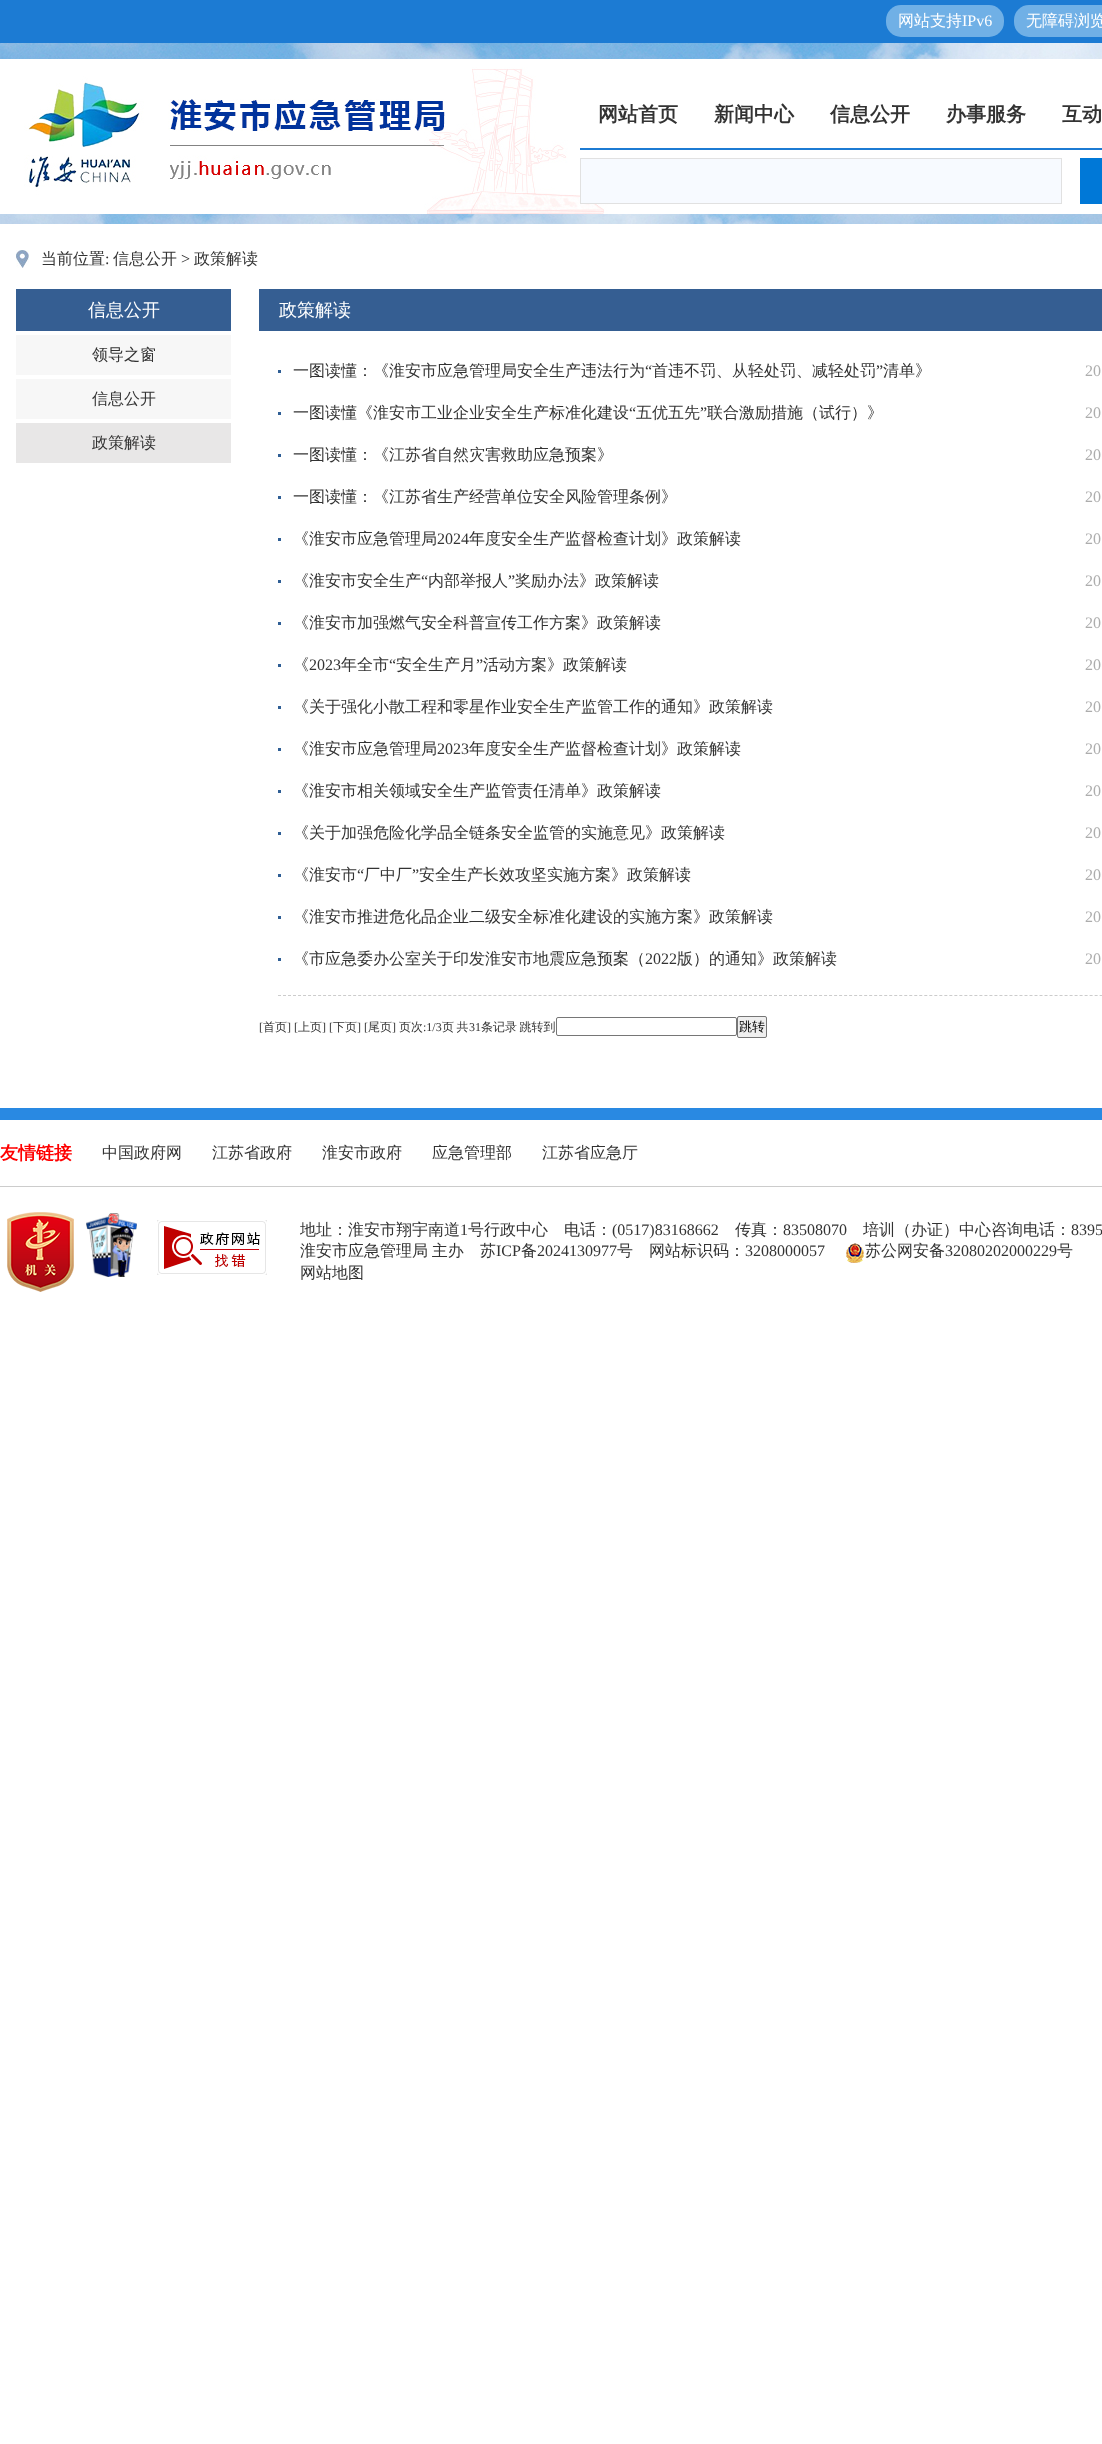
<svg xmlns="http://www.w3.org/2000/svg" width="1102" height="2444">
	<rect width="100%" height="100%" fill="#FFFFFF" />
	<image x="0" y="43" width="1102" height="181" href="assets/img1.png" />
	<rect x="0" y="0" width="1102" height="43" fill="#1C7BD3" />
	<rect x="886" y="5" width="118" height="32" rx="15" fill="#70B0E6" />
	<text x="898" y="26" font-family="WenQuanYi Zen Hei" font-size="16" font-weight="500" fill="#FFFFFF">网站支持</text>
	<text x="962" y="26" font-family="Liberation Serif" font-size="16" fill="#FFFFFF">IPv6</text>
	<rect x="1014" y="5" width="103" height="32" rx="15" fill="#70B0E6" />
	<text x="1026" y="26" font-family="WenQuanYi Zen Hei" font-size="16" font-weight="500" fill="#FFFFFF">无障碍浏览</text>
	<image x="0" y="59" width="1102" height="155" href="assets/img2.png" />
	<rect x="580" y="148" width="522" height="2" fill="#1C7BD3" />
	<g font-family="WenQuanYi Zen Hei" font-size="20" font-weight="700" fill="#333333">
		<text x="598" y="121">网站首页</text>
		<text x="714" y="121">新闻中心</text>
		<text x="830" y="121">信息公开</text>
		<text x="946" y="121">办事服务</text>
		<text x="1062" y="121">互动</text>
	</g>
	<rect x="580.5" y="158.5" width="481" height="45" fill="#F7FAFF" stroke="#E1E1E1" />
	<rect x="1080" y="158" width="22" height="46" fill="#0078D7" />
	<image x="16" y="250" width="13" height="18" href="assets/img3.png" />
	<text x="41" y="264" font-family="WenQuanYi Zen Hei" font-size="16" font-weight="500" fill="#333333">当前位置</text>
	<text x="105" y="264" font-family="Liberation Serif" font-size="16" fill="#333333">:</text>
	<text x="113" y="264" font-family="WenQuanYi Zen Hei" font-size="16" font-weight="500" fill="#333333">信息公开</text>
	<text x="181" y="264" font-family="Liberation Serif" font-size="16" fill="#333333">&gt;</text>
	<text x="194" y="264" font-family="WenQuanYi Zen Hei" font-size="16" font-weight="500" fill="#333333">政策解读</text>
	<rect x="16" y="289" width="215" height="42" fill="#355E92" />
	<text x="88" y="316" font-family="WenQuanYi Zen Hei" font-size="18" font-weight="500" fill="#FFFFFF">信息公开</text>
	<rect x="16" y="335" width="215" height="40" fill="#F7F7F7" />
	<text x="92" y="360" font-family="WenQuanYi Zen Hei" font-size="16" font-weight="500" fill="#333333">领导之窗</text>
	<rect x="16" y="379" width="215" height="40" fill="#F7F7F7" />
	<text x="92" y="404" font-family="WenQuanYi Zen Hei" font-size="16" font-weight="500" fill="#333333">信息公开</text>
	<rect x="16" y="423" width="215" height="40" fill="#E8E7E7" />
	<text x="92" y="448" font-family="WenQuanYi Zen Hei" font-size="16" font-weight="500" fill="#333333">政策解读</text>
	<rect x="259" y="289" width="843" height="42" fill="#355E92" />
	<text x="279" y="316" font-family="WenQuanYi Zen Hei" font-size="18" font-weight="500" fill="#FFFFFF">政策解读</text>
	<path d="M278 995.5H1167" fill="none" stroke="#CCCCCC" stroke-dasharray="3 2.01" />
	<rect x="278" y="370" width="3" height="3" fill="#2F5E95" />
	<text x="293" y="376" font-family="WenQuanYi Zen Hei" font-size="16" font-weight="500" fill="#333333">一图读懂：《淮安市应急管理局安全生产违法行为</text>
	<text x="645" y="376" font-family="Liberation Serif" font-size="16" fill="#333333">“</text>
	<text x="652" y="376" font-family="WenQuanYi Zen Hei" font-size="16" font-weight="500" fill="#333333">首违不罚、从轻处罚、减轻处罚</text>
	<text x="876" y="376" font-family="Liberation Serif" font-size="16" fill="#333333">”</text>
	<text x="883" y="376" font-family="WenQuanYi Zen Hei" font-size="16" font-weight="500" fill="#333333">清单》</text>
	<text x="1085" y="376" font-family="Liberation Serif" font-size="16" fill="#ADADAD">20</text>
	<rect x="278" y="412" width="3" height="3" fill="#2F5E95" />
	<text x="293" y="418" font-family="WenQuanYi Zen Hei" font-size="16" font-weight="500" fill="#333333">一图读懂《淮安市工业企业安全生产标准化建设</text>
	<text x="629" y="418" font-family="Liberation Serif" font-size="16" fill="#333333">“</text>
	<text x="636" y="418" font-family="WenQuanYi Zen Hei" font-size="16" font-weight="500" fill="#333333">五优五先</text>
	<text x="700" y="418" font-family="Liberation Serif" font-size="16" fill="#333333">”</text>
	<text x="707" y="418" font-family="WenQuanYi Zen Hei" font-size="16" font-weight="500" fill="#333333">联合激励措施（试行）》</text>
	<text x="1085" y="418" font-family="Liberation Serif" font-size="16" fill="#ADADAD">20</text>
	<rect x="278" y="454" width="3" height="3" fill="#2F5E95" />
	<text x="293" y="460" font-family="WenQuanYi Zen Hei" font-size="16" font-weight="500" fill="#333333">一图读懂：《江苏省自然灾害救助应急预案》</text>
	<text x="1085" y="460" font-family="Liberation Serif" font-size="16" fill="#ADADAD">20</text>
	<rect x="278" y="496" width="3" height="3" fill="#2F5E95" />
	<text x="293" y="502" font-family="WenQuanYi Zen Hei" font-size="16" font-weight="500" fill="#333333">一图读懂：《江苏省生产经营单位安全风险管理条例》</text>
	<text x="1085" y="502" font-family="Liberation Serif" font-size="16" fill="#ADADAD">20</text>
	<rect x="278" y="538" width="3" height="3" fill="#2F5E95" />
	<text x="293" y="544" font-family="WenQuanYi Zen Hei" font-size="16" font-weight="500" fill="#333333">《淮安市应急管理局</text>
	<text x="437" y="544" font-family="Liberation Serif" font-size="16" fill="#333333">2024</text>
	<text x="469" y="544" font-family="WenQuanYi Zen Hei" font-size="16" font-weight="500" fill="#333333">年度安全生产监督检查计划》政策解读</text>
	<text x="1085" y="544" font-family="Liberation Serif" font-size="16" fill="#ADADAD">20</text>
	<rect x="278" y="580" width="3" height="3" fill="#2F5E95" />
	<text x="293" y="586" font-family="WenQuanYi Zen Hei" font-size="16" font-weight="500" fill="#333333">《淮安市安全生产</text>
	<text x="421" y="586" font-family="Liberation Serif" font-size="16" fill="#333333">“</text>
	<text x="428" y="586" font-family="WenQuanYi Zen Hei" font-size="16" font-weight="500" fill="#333333">内部举报人</text>
	<text x="508" y="586" font-family="Liberation Serif" font-size="16" fill="#333333">”</text>
	<text x="515" y="586" font-family="WenQuanYi Zen Hei" font-size="16" font-weight="500" fill="#333333">奖励办法》政策解读</text>
	<text x="1085" y="586" font-family="Liberation Serif" font-size="16" fill="#ADADAD">20</text>
	<rect x="278" y="622" width="3" height="3" fill="#2F5E95" />
	<text x="293" y="628" font-family="WenQuanYi Zen Hei" font-size="16" font-weight="500" fill="#333333">《淮安市加强燃气安全科普宣传工作方案》政策解读</text>
	<text x="1085" y="628" font-family="Liberation Serif" font-size="16" fill="#ADADAD">20</text>
	<rect x="278" y="664" width="3" height="3" fill="#2F5E95" />
	<text x="293" y="670" font-family="WenQuanYi Zen Hei" font-size="16" font-weight="500" fill="#333333">《</text>
	<text x="309" y="670" font-family="Liberation Serif" font-size="16" fill="#333333">2023</text>
	<text x="341" y="670" font-family="WenQuanYi Zen Hei" font-size="16" font-weight="500" fill="#333333">年全市</text>
	<text x="389" y="670" font-family="Liberation Serif" font-size="16" fill="#333333">“</text>
	<text x="396" y="670" font-family="WenQuanYi Zen Hei" font-size="16" font-weight="500" fill="#333333">安全生产月</text>
	<text x="476" y="670" font-family="Liberation Serif" font-size="16" fill="#333333">”</text>
	<text x="483" y="670" font-family="WenQuanYi Zen Hei" font-size="16" font-weight="500" fill="#333333">活动方案》政策解读</text>
	<text x="1085" y="670" font-family="Liberation Serif" font-size="16" fill="#ADADAD">20</text>
	<rect x="278" y="706" width="3" height="3" fill="#2F5E95" />
	<text x="293" y="712" font-family="WenQuanYi Zen Hei" font-size="16" font-weight="500" fill="#333333">《关于强化小散工程和零星作业安全生产监管工作的通知》政策解读</text>
	<text x="1085" y="712" font-family="Liberation Serif" font-size="16" fill="#ADADAD">20</text>
	<rect x="278" y="748" width="3" height="3" fill="#2F5E95" />
	<text x="293" y="754" font-family="WenQuanYi Zen Hei" font-size="16" font-weight="500" fill="#333333">《淮安市应急管理局</text>
	<text x="437" y="754" font-family="Liberation Serif" font-size="16" fill="#333333">2023</text>
	<text x="469" y="754" font-family="WenQuanYi Zen Hei" font-size="16" font-weight="500" fill="#333333">年度安全生产监督检查计划》政策解读</text>
	<text x="1085" y="754" font-family="Liberation Serif" font-size="16" fill="#ADADAD">20</text>
	<rect x="278" y="790" width="3" height="3" fill="#2F5E95" />
	<text x="293" y="796" font-family="WenQuanYi Zen Hei" font-size="16" font-weight="500" fill="#333333">《淮安市相关领域安全生产监管责任清单》政策解读</text>
	<text x="1085" y="796" font-family="Liberation Serif" font-size="16" fill="#ADADAD">20</text>
	<rect x="278" y="832" width="3" height="3" fill="#2F5E95" />
	<text x="293" y="838" font-family="WenQuanYi Zen Hei" font-size="16" font-weight="500" fill="#333333">《关于加强危险化学品全链条安全监管的实施意见》政策解读</text>
	<text x="1085" y="838" font-family="Liberation Serif" font-size="16" fill="#ADADAD">20</text>
	<rect x="278" y="874" width="3" height="3" fill="#2F5E95" />
	<text x="293" y="880" font-family="WenQuanYi Zen Hei" font-size="16" font-weight="500" fill="#333333">《淮安市</text>
	<text x="357" y="880" font-family="Liberation Serif" font-size="16" fill="#333333">“</text>
	<text x="364" y="880" font-family="WenQuanYi Zen Hei" font-size="16" font-weight="500" fill="#333333">厂中厂</text>
	<text x="412" y="880" font-family="Liberation Serif" font-size="16" fill="#333333">”</text>
	<text x="419" y="880" font-family="WenQuanYi Zen Hei" font-size="16" font-weight="500" fill="#333333">安全生产长效攻坚实施方案》政策解读</text>
	<text x="1085" y="880" font-family="Liberation Serif" font-size="16" fill="#ADADAD">20</text>
	<rect x="278" y="916" width="3" height="3" fill="#2F5E95" />
	<text x="293" y="922" font-family="WenQuanYi Zen Hei" font-size="16" font-weight="500" fill="#333333">《淮安市推进危化品企业二级安全标准化建设的实施方案》政策解读</text>
	<text x="1085" y="922" font-family="Liberation Serif" font-size="16" fill="#ADADAD">20</text>
	<rect x="278" y="958" width="3" height="3" fill="#2F5E95" />
	<text x="293" y="964" font-family="WenQuanYi Zen Hei" font-size="16" font-weight="500" fill="#333333">《市应急委办公室关于印发淮安市地震应急预案（</text>
	<text x="645" y="964" font-family="Liberation Serif" font-size="16" fill="#333333">2022</text>
	<text x="677" y="964" font-family="WenQuanYi Zen Hei" font-size="16" font-weight="500" fill="#333333">版）的通知》政策解读</text>
	<text x="1085" y="964" font-family="Liberation Serif" font-size="16" fill="#ADADAD">20</text>
	<text x="259" y="1031" font-family="Liberation Serif" font-size="12" fill="#333333">[</text>
	<text x="263" y="1031" font-family="WenQuanYi Zen Hei" font-size="12" font-weight="500" fill="#333333">首页</text>
	<text x="287" y="1031" font-family="Liberation Serif" font-size="12" fill="#333333">] [</text>
	<text x="298" y="1031" font-family="WenQuanYi Zen Hei" font-size="12" font-weight="500" fill="#333333">上页</text>
	<text x="322" y="1031" font-family="Liberation Serif" font-size="12" fill="#333333">] [</text>
	<text x="333" y="1031" font-family="WenQuanYi Zen Hei" font-size="12" font-weight="500" fill="#333333">下页</text>
	<text x="357" y="1031" font-family="Liberation Serif" font-size="12" fill="#333333">] [</text>
	<text x="368" y="1031" font-family="WenQuanYi Zen Hei" font-size="12" font-weight="500" fill="#333333">尾页</text>
	<text x="392" y="1031" font-family="Liberation Serif" font-size="12" fill="#333333">]</text>
	<text x="399" y="1031" font-family="WenQuanYi Zen Hei" font-size="12" font-weight="500" fill="#333333">页次</text>
	<text x="423" y="1031" font-family="Liberation Serif" font-size="12" fill="#333333">:1/3</text>
	<text x="442" y="1031" word-spacing="-1" font-family="WenQuanYi Zen Hei" font-size="12" font-weight="500" fill="#333333">页 共</text>
	<text x="469" y="1031" font-family="Liberation Serif" font-size="12" fill="#333333">31</text>
	<text x="481" y="1031" word-spacing="-1" font-family="WenQuanYi Zen Hei" font-size="12" font-weight="500" fill="#333333">条记录 跳转到</text>
	<rect x="556.5" y="1017.5" width="180" height="18" rx="1.5" fill="none" stroke="#767676" />
	<rect x="737.5" y="1016.5" width="29" height="21" rx="1.5" fill="#EFEFEF" stroke="#767676" />
	<text x="739" y="1031" font-family="WenQuanYi Zen Hei" font-size="13" font-weight="500" fill="#000000">跳转</text>
	<rect x="0" y="1108" width="1102" height="12" fill="#2989E2" />
	<rect x="0" y="1186" width="1102" height="1" fill="#CCCCCC" />
	<text x="0" y="1159" font-family="WenQuanYi Zen Hei" font-size="18" font-weight="700" fill="#FF0000">友情链接</text>
	<g font-family="WenQuanYi Zen Hei" font-size="16" font-weight="500" fill="#333333">
		<text x="102" y="1158">中国政府网</text>
		<text x="212" y="1158">江苏省政府</text>
		<text x="322" y="1158">淮安市政府</text>
		<text x="432" y="1158">应急管理部</text>
		<text x="542" y="1158">江苏省应急厅</text>
	</g>
	<image x="7" y="1212" width="67" height="80" href="assets/img4.png" />
	<image x="86" y="1213" width="51" height="64" href="assets/img5.png" />
	<image x="157" y="1220" width="110" height="55" href="assets/img6.png" />
	<text x="300" y="1235" font-family="WenQuanYi Zen Hei" font-size="16" font-weight="500" fill="#333333">地址：淮安市翔宇南道</text>
	<text x="460" y="1235" font-family="Liberation Serif" font-size="16" fill="#333333">1</text>
	<text x="468" y="1235" font-family="WenQuanYi Zen Hei" font-size="16" font-weight="500" fill="#333333">号行政中心　电话：</text>
	<text x="612" y="1235" font-family="Liberation Serif" font-size="16" fill="#333333">(0517)83168662</text>
	<text x="735" y="1235" font-family="WenQuanYi Zen Hei" font-size="16" font-weight="500" fill="#333333">传真：</text>
	<text x="783" y="1235" font-family="Liberation Serif" font-size="16" fill="#333333">83508070</text>
	<text x="863" y="1235" font-family="WenQuanYi Zen Hei" font-size="16" font-weight="500" fill="#333333">培训（办证）中心咨询电话：</text>
	<text x="1071" y="1235" font-family="Liberation Serif" font-size="16" fill="#333333">8395</text>
	<g font-family="WenQuanYi Zen Hei" font-size="16" font-weight="500" fill="#333333">
		<text x="300" y="1256" word-spacing="-1">淮安市应急管理局 主办</text>
		<text x="480" y="1256">苏</text>
	</g>
	<text x="496" y="1256" font-family="Liberation Serif" font-size="16" fill="#333333">ICP</text>
	<text x="521" y="1256" font-family="WenQuanYi Zen Hei" font-size="16" font-weight="500" fill="#333333">备</text>
	<text x="537" y="1256" font-family="Liberation Serif" font-size="16" fill="#333333">2024130977</text>
	<g font-family="WenQuanYi Zen Hei" font-size="16" font-weight="500" fill="#333333">
		<text x="617" y="1256">号</text>
		<text x="649" y="1256">网站标识码：</text>
	</g>
	<text x="745" y="1256" font-family="Liberation Serif" font-size="16" fill="#333333">3208000057</text>
	<image x="846" y="1243" width="18" height="20" href="assets/img7.png" />
	<text x="865" y="1256" font-family="WenQuanYi Zen Hei" font-size="16" font-weight="500" fill="#333333">苏公网安备</text>
	<text x="945" y="1256" font-family="Liberation Serif" font-size="16" fill="#333333">32080202000229</text>
	<g font-family="WenQuanYi Zen Hei" font-size="16" font-weight="500" fill="#333333">
		<text x="1057" y="1256">号</text>
		<text x="300" y="1278">网站地图</text>
	</g>
</svg>
